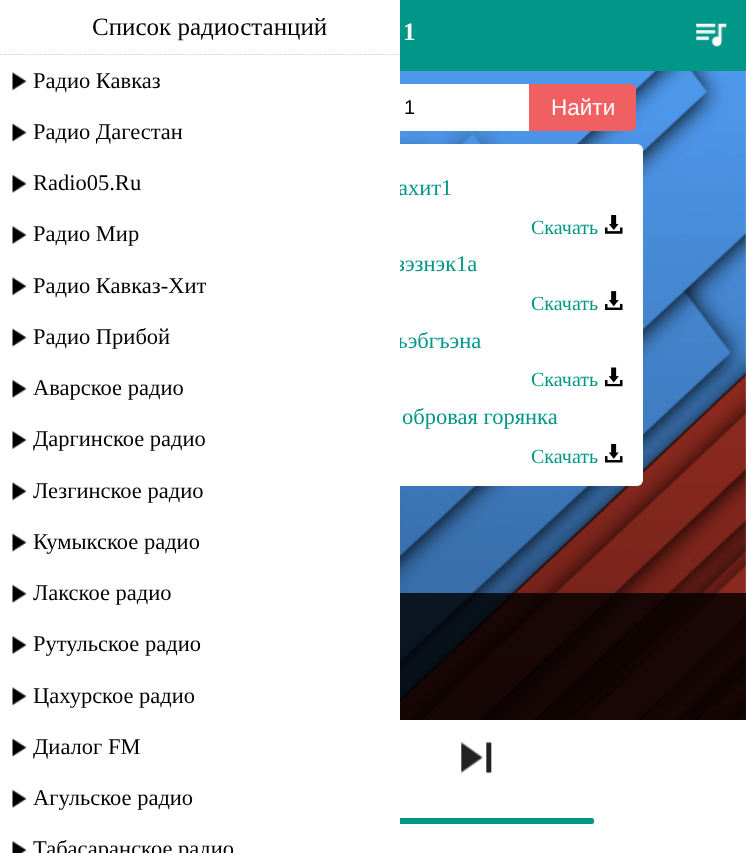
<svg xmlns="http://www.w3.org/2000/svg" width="746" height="853">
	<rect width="100%" height="100%" fill="#FFFFFF" />
	<image x="400" y="71" width="346" height="649" href="assets/img1.png" />
	<rect x="105" y="144" width="538" height="342" rx="6" fill="#FFFFFF" />
	<g font-family="Liberation Serif" font-size="22.5" fill="#009688">
		<text x="398" y="195">ахит1</text>
		<text x="396" y="271">зэзнэк1а</text>
		<text x="396" y="348">ъэбгъэна</text>
	</g>
	<rect x="153" y="818" width="441" height="6" rx="2" fill="#009688" />
	<rect x="153" y="184" width="247" height="640" fill="#FFFFFF" />
	<path d="M0 54.5H400" fill="none" stroke="#CCCCCC" stroke-width="1.2" stroke-dasharray="1.25 1.25" />
	<text x="92" y="35" font-family="Liberation Serif" font-size="25" fill="#000000">Список радиостанций</text>
	<rect x="0" y="55" width="399" height="1" fill="#FFFFFF" />
	<image x="12" y="72" width="15" height="19" href="assets/img2.png" />
	<text x="33" y="88" font-family="Liberation Serif" font-size="22.5" fill="#000000">Радио Кавказ</text>
	<image x="12" y="123" width="15" height="19" href="assets/img3.png" />
	<text x="33" y="139" font-family="Liberation Serif" font-size="22.5" fill="#000000">Радио Дагестан</text>
	<image x="12" y="174" width="15" height="19" href="assets/img4.png" />
	<text x="33" y="190" font-family="Liberation Serif" font-size="22.5" fill="#000000">Radio05.Ru</text>
	<image x="12" y="226" width="15" height="18" href="assets/img5.png" />
	<text x="33" y="241" font-family="Liberation Serif" font-size="22.5" fill="#000000">Радио Мир</text>
	<image x="12" y="277" width="15" height="19" href="assets/img2.png" />
	<text x="33" y="293" font-family="Liberation Serif" font-size="22.5" fill="#000000">Радио Кавказ-Хит</text>
	<image x="12" y="328" width="15" height="19" href="assets/img3.png" />
	<text x="33" y="344" font-family="Liberation Serif" font-size="22.5" fill="#000000">Радио Прибой</text>
	<image x="12" y="379" width="15" height="19" href="assets/img4.png" />
	<text x="33" y="395" font-family="Liberation Serif" font-size="22.5" fill="#000000">Аварское радио</text>
	<image x="12" y="431" width="15" height="18" href="assets/img5.png" />
	<text x="33" y="446" font-family="Liberation Serif" font-size="22.5" fill="#000000">Даргинское радио</text>
	<image x="12" y="482" width="15" height="19" href="assets/img2.png" />
	<text x="33" y="498" font-family="Liberation Serif" font-size="22.5" fill="#000000">Лезгинское радио</text>
	<image x="12" y="533" width="15" height="19" href="assets/img3.png" />
	<text x="33" y="549" font-family="Liberation Serif" font-size="22.5" fill="#000000">Кумыкское радио</text>
	<image x="12" y="584" width="15" height="19" href="assets/img4.png" />
	<text x="33" y="600" font-family="Liberation Serif" font-size="22.5" fill="#000000">Лакское радио</text>
	<image x="12" y="636" width="15" height="18" href="assets/img5.png" />
	<text x="33" y="651" font-family="Liberation Serif" font-size="22.5" fill="#000000">Рутульское радио</text>
	<image x="12" y="687" width="15" height="19" href="assets/img2.png" />
	<text x="33" y="703" font-family="Liberation Serif" font-size="22.5" fill="#000000">Цахурское радио</text>
	<image x="12" y="738" width="15" height="19" href="assets/img3.png" />
	<text x="33" y="754" font-family="Liberation Serif" font-size="22.5" fill="#000000">Диалог FM</text>
	<image x="12" y="789" width="15" height="19" href="assets/img4.png" />
	<text x="33" y="805" font-family="Liberation Serif" font-size="22.5" fill="#000000">Агульское радио</text>
	<image x="12" y="841" width="15" height="12" href="assets/img6.png" />
	<text x="33" y="856" font-family="Liberation Serif" font-size="22.5" fill="#000000">Табасаранское радио</text>
	<rect x="400" y="0" width="346" height="71" fill="#009688" />
	<text x="403" y="40" font-family="Liberation Serif" font-size="25" font-weight="700" fill="#FFFFFF">1</text>
	<image x="696" y="23" width="31" height="24" href="assets/img7.png" />
	<rect x="400" y="84" width="129" height="47" fill="#FFFFFF" />
	<text x="404" y="114" font-family="Liberation Sans" font-size="20" fill="#000000">1</text>
	<path d="M529 84H630C633.5 84 636 86.5 636 90V125C636 128.5 633.5 131 630 131H529Z" fill="#F06060" />
	<text x="551" y="115" font-family="Liberation Sans" font-size="22.5" fill="#FFFFFF">Найти</text>
	<text x="531" y="234" font-family="Liberation Serif" font-size="20" fill="#009688">Скачать</text>
	<image x="605" y="215" width="18" height="19" href="assets/img8.png" />
	<text x="531" y="310" font-family="Liberation Serif" font-size="20" fill="#009688">Скачать</text>
	<image x="605" y="291" width="18" height="19" href="assets/img9.png" />
	<text x="531" y="386" font-family="Liberation Serif" font-size="20" fill="#009688">Скачать</text>
	<image x="605" y="367" width="18" height="20" href="assets/img10.png" />
	<text x="402" y="424" font-family="Liberation Serif" font-size="22.5" fill="#009688">обровая горянка</text>
	<text x="531" y="463" font-family="Liberation Serif" font-size="20" fill="#009688">Скачать</text>
	<image x="605" y="443" width="18" height="20" href="assets/img11.png" />
	<rect x="400" y="593" width="346" height="127" fill="#000000" fill-opacity="0.8" />
	<image x="461" y="741" width="31" height="33" href="assets/img12.png" />
</svg>
